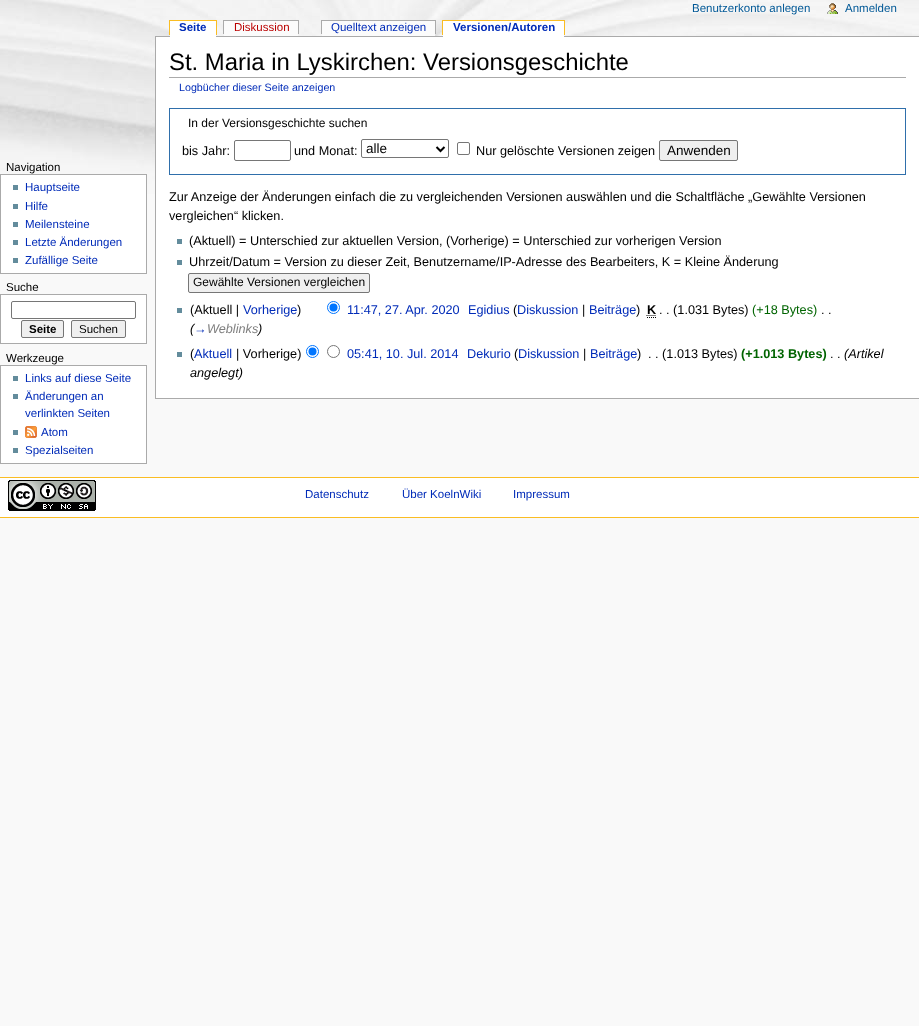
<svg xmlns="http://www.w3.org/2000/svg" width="919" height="1026">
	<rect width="100%" height="100%" fill="#F9F9F9" />
	<image x="0" y="0" width="919" height="194" href="assets/img1.png" />
	<text x="692" y="12" font-family="Liberation Sans" font-size="11.5" fill="#005896">Benutzerkonto anlegen</text>
	<image x="827" y="3" width="11" height="11" href="assets/img2.png" />
	<text x="845" y="12" font-family="Liberation Sans" font-size="11.5" fill="#005896">Anmelden</text>
	<rect x="155" y="36" width="764" height="1" fill="#AAAAAA" />
	<rect x="170" y="21" width="46" height="16" fill="#FFFFFF" />
	<text x="179" y="31" font-family="Liberation Sans" font-size="11.5" font-weight="700" fill="#002BB8">Seite</text>
	<rect x="169" y="20" width="48" height="1" fill="#FABD23" />
	<rect x="216" y="20" width="1" height="15" fill="#FABD23" />
	<rect x="169" y="20" width="1" height="15" fill="#FABD23" />
	<rect x="224" y="21" width="74" height="15" fill="#FBFBFB" />
	<text x="234" y="31" font-family="Liberation Sans" font-size="11.5" fill="#BA0000">Diskussion</text>
	<rect x="223" y="20" width="76" height="1" fill="#AAAAAA" />
	<rect x="298" y="20" width="1" height="14" fill="#AAAAAA" />
	<rect x="223" y="20" width="1" height="14" fill="#AAAAAA" />
	<rect x="322" y="21" width="113" height="15" fill="#FBFBFB" />
	<text x="331" y="31" font-family="Liberation Sans" font-size="11.5" fill="#002BB8">Quelltext anzeigen</text>
	<rect x="321" y="20" width="115" height="1" fill="#AAAAAA" />
	<rect x="435" y="20" width="1" height="14" fill="#AAAAAA" />
	<rect x="321" y="20" width="1" height="14" fill="#AAAAAA" />
	<rect x="443" y="21" width="121" height="16" fill="#FFFFFF" />
	<text x="453" y="31" font-family="Liberation Sans" font-size="11.5" font-weight="700" fill="#002BB8">Versionen/Autoren</text>
	<rect x="442" y="20" width="123" height="1" fill="#FABD23" />
	<rect x="564" y="20" width="1" height="15" fill="#FABD23" />
	<rect x="442" y="20" width="1" height="15" fill="#FABD23" />
	<text x="6" y="171" font-family="Liberation Sans" font-size="11.5" fill="#000000">Navigation</text>
	<rect x="0.5" y="174.5" width="146" height="99" fill="#FFFFFF" stroke="#AAAAAA" />
	<rect x="13" y="185" width="5" height="5" fill="#638C9C" />
	<text x="25" y="191" font-family="Liberation Sans" font-size="11.5" fill="#002BB8">Hauptseite</text>
	<rect x="13" y="204" width="5" height="5" fill="#638C9C" />
	<text x="25" y="210" font-family="Liberation Sans" font-size="11.5" fill="#002BB8">Hilfe</text>
	<rect x="13" y="222" width="5" height="5" fill="#638C9C" />
	<text x="25" y="228" font-family="Liberation Sans" font-size="11.5" fill="#002BB8">Meilensteine</text>
	<rect x="13" y="240" width="5" height="5" fill="#638C9C" />
	<text x="25" y="246" font-family="Liberation Sans" font-size="11.5" fill="#002BB8">Letzte Änderungen</text>
	<rect x="13" y="258" width="5" height="5" fill="#638C9C" />
	<text x="25" y="264" font-family="Liberation Sans" font-size="11.5" fill="#002BB8">Zufällige Seite</text>
	<text x="6" y="291" font-family="Liberation Sans" font-size="11.5" fill="#000000">Suche</text>
	<rect x="0.5" y="294.5" width="146" height="49" fill="#FFFFFF" stroke="#AAAAAA" />
	<rect x="11.5" y="301.5" width="124" height="17" rx="1.5" fill="none" stroke="#767676" />
	<rect x="21.5" y="320.5" width="42" height="17" rx="1.5" fill="#EFEFEF" stroke="#767676" />
	<text x="29" y="333" font-family="Liberation Sans" font-size="11.5" font-weight="700" fill="#000000">Seite</text>
	<rect x="71.5" y="320.5" width="54" height="17" rx="1.5" fill="#EFEFEF" stroke="#767676" />
	<g font-family="Liberation Sans" font-size="11.5" fill="#000000">
		<text x="79" y="333">Suchen</text>
		<text x="6" y="362">Werkzeuge</text>
	</g>
	<rect x="0.5" y="365.5" width="146" height="98" fill="#FFFFFF" stroke="#AAAAAA" />
	<rect x="13" y="376" width="5" height="5" fill="#638C9C" />
	<text x="25" y="382" font-family="Liberation Sans" font-size="11.5" fill="#002BB8">Links auf diese Seite</text>
	<rect x="13" y="394" width="5" height="5" fill="#638C9C" />
	<g font-family="Liberation Sans" font-size="11.5" fill="#002BB8">
		<text x="25" y="400">Änderungen an</text>
		<text x="25" y="417">verlinkten Seiten</text>
	</g>
	<rect x="13" y="430" width="5" height="5" fill="#638C9C" />
	<image x="25" y="426" width="12" height="12" href="assets/img3.png" />
	<text x="41" y="436" font-family="Liberation Sans" font-size="11.5" fill="#002BB8">Atom</text>
	<rect x="13" y="448" width="5" height="5" fill="#638C9C" />
	<text x="25" y="454" font-family="Liberation Sans" font-size="11.5" fill="#002BB8">Spezialseiten</text>
	<rect x="156" y="37" width="763" height="361" fill="#FFFFFF" />
	<rect x="155" y="398" width="764" height="1" fill="#AAAAAA" />
	<rect x="155" y="36" width="1" height="363" fill="#AAAAAA" />
	<rect x="169" y="77" width="737" height="1" fill="#AAAAAA" />
	<text x="169" y="70" font-family="Liberation Sans" font-size="23.9" fill="#000000">St. Maria in Lyskirchen: Versionsgeschichte</text>
	<text x="179" y="91" font-family="Liberation Sans" font-size="10.7" fill="#002BB8">Logbücher dieser Seite anzeigen</text>
	<rect x="169.5" y="108.5" width="736" height="66" fill="none" stroke="#2F6FAB" />
	<text x="188" y="127" font-family="Liberation Sans" font-size="12" fill="#000000">In der Versionsgeschichte suchen</text>
	<text x="182" y="155" font-family="Liberation Sans" font-size="12.7" fill="#000000">bis Jahr:</text>
	<rect x="234.5" y="140.5" width="56" height="20" rx="1.5" fill="none" stroke="#767676" />
	<text x="294" y="155" font-family="Liberation Sans" font-size="12.7" fill="#000000">und Monat:</text>
	<rect x="361.5" y="139.5" width="87" height="18" rx="1.5" fill="none" stroke="#767676" />
	<path d="M436.5 147L440.5 151L444.5 147" fill="none" stroke="#000000" stroke-width="2" />
	<text x="366" y="153" font-family="Liberation Sans" font-size="13.5" fill="#000000">alle</text>
	<rect x="457.5" y="142.5" width="12" height="12" rx="1.5" fill="none" stroke="#767676" />
	<text x="476" y="155" font-family="Liberation Sans" font-size="12.7" fill="#000000">Nur gelöschte Versionen zeigen</text>
	<rect x="659.5" y="140.5" width="78" height="20" rx="1.5" fill="#EFEFEF" stroke="#767676" />
	<text x="667" y="155" font-family="Liberation Sans" font-size="13.5" fill="#000000">Anwenden</text>
	<g font-family="Liberation Sans" font-size="12.7" fill="#000000">
		<text x="169" y="201">Zur Anzeige der Änderungen einfach die zu vergleichenden Versionen auswählen und die Schaltfläche „Gewählte Versionen</text>
		<text x="169" y="220">vergleichen“ klicken.</text>
	</g>
	<rect x="177" y="239" width="5" height="5" fill="#638C9C" />
	<text x="189" y="245" font-family="Liberation Sans" font-size="12.7" fill="#000000">(Aktuell) = Unterschied zur aktuellen Version, (Vorherige) = Unterschied zur vorherigen Version</text>
	<rect x="177" y="260" width="5" height="5" fill="#638C9C" />
	<text x="189" y="266" font-family="Liberation Sans" font-size="12.7" fill="#000000">Uhrzeit/Datum = Version zu dieser Zeit, Benutzername/IP-Adresse des Bearbeiters, K = Kleine Änderung</text>
	<rect x="188.5" y="273.5" width="181" height="19" rx="1.5" fill="#EFEFEF" stroke="#767676" />
	<text x="193" y="286" font-family="Liberation Sans" font-size="12" fill="#000000">Gewählte Versionen vergleichen</text>
	<rect x="177" y="308" width="5" height="5" fill="#638C9C" />
	<text x="190" y="314" font-family="Liberation Sans" font-size="12.7" fill="#000000">(Aktuell |</text>
	<text x="243" y="314" font-family="Liberation Sans" font-size="12.7" fill="#002BB8">Vorherige</text>
	<text x="297" y="314" font-family="Liberation Sans" font-size="12.7" fill="#000000">)</text>
	<circle cx="333.5" cy="307.5" r="6" fill="none" stroke="#0075FF" />
	<circle cx="333.5" cy="307.5" r="4" fill="#0075FF" />
	<g font-family="Liberation Sans" font-size="12.7" fill="#002BB8">
		<text x="347" y="314">11:47, 27. Apr. 2020</text>
		<text x="468" y="314">Egidius</text>
	</g>
	<text x="513" y="314" font-family="Liberation Sans" font-size="12.7" fill="#000000">(</text>
	<text x="517" y="314" font-family="Liberation Sans" font-size="12.7" fill="#002BB8">Diskussion</text>
	<text x="582" y="314" font-family="Liberation Sans" font-size="12.7" fill="#000000">|</text>
	<text x="589" y="314" font-family="Liberation Sans" font-size="12.7" fill="#002BB8">Beiträge</text>
	<text x="636" y="314" font-family="Liberation Sans" font-size="12.7" fill="#000000">)</text>
	<text x="647" y="314" font-family="Liberation Sans" font-size="12.7" font-weight="700" fill="#000000">K</text>
	<path d="M647 317.5H656M646.5 315.5H656" fill="none" stroke="#000000" stroke-dasharray="1 1" />
	<text x="659" y="314" font-family="Liberation Sans" font-size="12.7" fill="#000000">. . (1.031 Bytes)</text>
	<text x="752" y="314" font-family="Liberation Sans" font-size="12.7" fill="#006400">(+18 Bytes)</text>
	<text x="821" y="314" font-family="Liberation Sans" font-size="12.7" fill="#000000">. .</text>
	<text x="190" y="333" font-family="Liberation Sans" font-size="12.7" font-style="italic" fill="#000000">(</text>
	<text x="194" y="333" font-family="Liberation Sans" font-size="12.7" font-style="italic" fill="#002BB8">→</text>
	<text x="207" y="333" font-family="Liberation Sans" font-size="12.7" font-style="italic" fill="#808080">Weblinks</text>
	<text x="258" y="333" font-family="Liberation Sans" font-size="12.7" font-style="italic" fill="#000000">)</text>
	<rect x="177" y="352" width="5" height="5" fill="#638C9C" />
	<text x="190" y="358" font-family="Liberation Sans" font-size="12.7" fill="#000000">(</text>
	<text x="194" y="358" font-family="Liberation Sans" font-size="12.7" fill="#002BB8">Aktuell</text>
	<text x="236" y="358" font-family="Liberation Sans" font-size="12.7" fill="#000000">| Vorherige)</text>
	<circle cx="312.5" cy="351.5" r="6" fill="none" stroke="#0075FF" />
	<circle cx="312.5" cy="351.5" r="4" fill="#0075FF" />
	<circle cx="333.5" cy="351.5" r="6" fill="none" stroke="#767676" />
	<g font-family="Liberation Sans" font-size="12.7" fill="#002BB8">
		<text x="347" y="358">05:41, 10. Jul. 2014</text>
		<text x="467" y="358">Dekurio</text>
	</g>
	<text x="514" y="358" font-family="Liberation Sans" font-size="12.7" fill="#000000">(</text>
	<text x="518" y="358" font-family="Liberation Sans" font-size="12.7" fill="#002BB8">Diskussion</text>
	<text x="583" y="358" font-family="Liberation Sans" font-size="12.7" fill="#000000">|</text>
	<text x="590" y="358" font-family="Liberation Sans" font-size="12.7" fill="#002BB8">Beiträge</text>
	<g font-family="Liberation Sans" font-size="12.7" fill="#000000">
		<text x="637" y="358">)</text>
		<text x="648" y="358">. . (1.013 Bytes)</text>
	</g>
	<text x="741" y="358" font-family="Liberation Sans" font-size="12.7" font-weight="700" fill="#006400">(+1.013 Bytes)</text>
	<text x="830" y="358" font-family="Liberation Sans" font-size="12.7" fill="#000000">. .</text>
	<g font-family="Liberation Sans" font-size="12.7" font-style="italic" fill="#000000">
		<text x="844" y="358">(Artikel</text>
		<text x="190" y="377">angelegt)</text>
	</g>
	<rect x="0" y="478" width="919" height="39" fill="#FFFFFF" />
	<rect x="0" y="477" width="919" height="1" fill="#FABD23" />
	<rect x="0" y="517" width="919" height="1" fill="#FABD23" />
	<image x="8" y="480" width="88" height="31" href="assets/img4.png" />
	<g font-family="Liberation Sans" font-size="11.5" fill="#002BB8">
		<text x="305" y="498">Datenschutz</text>
		<text x="402" y="498">Über KoelnWiki</text>
		<text x="513" y="498">Impressum</text>
	</g>
</svg>
